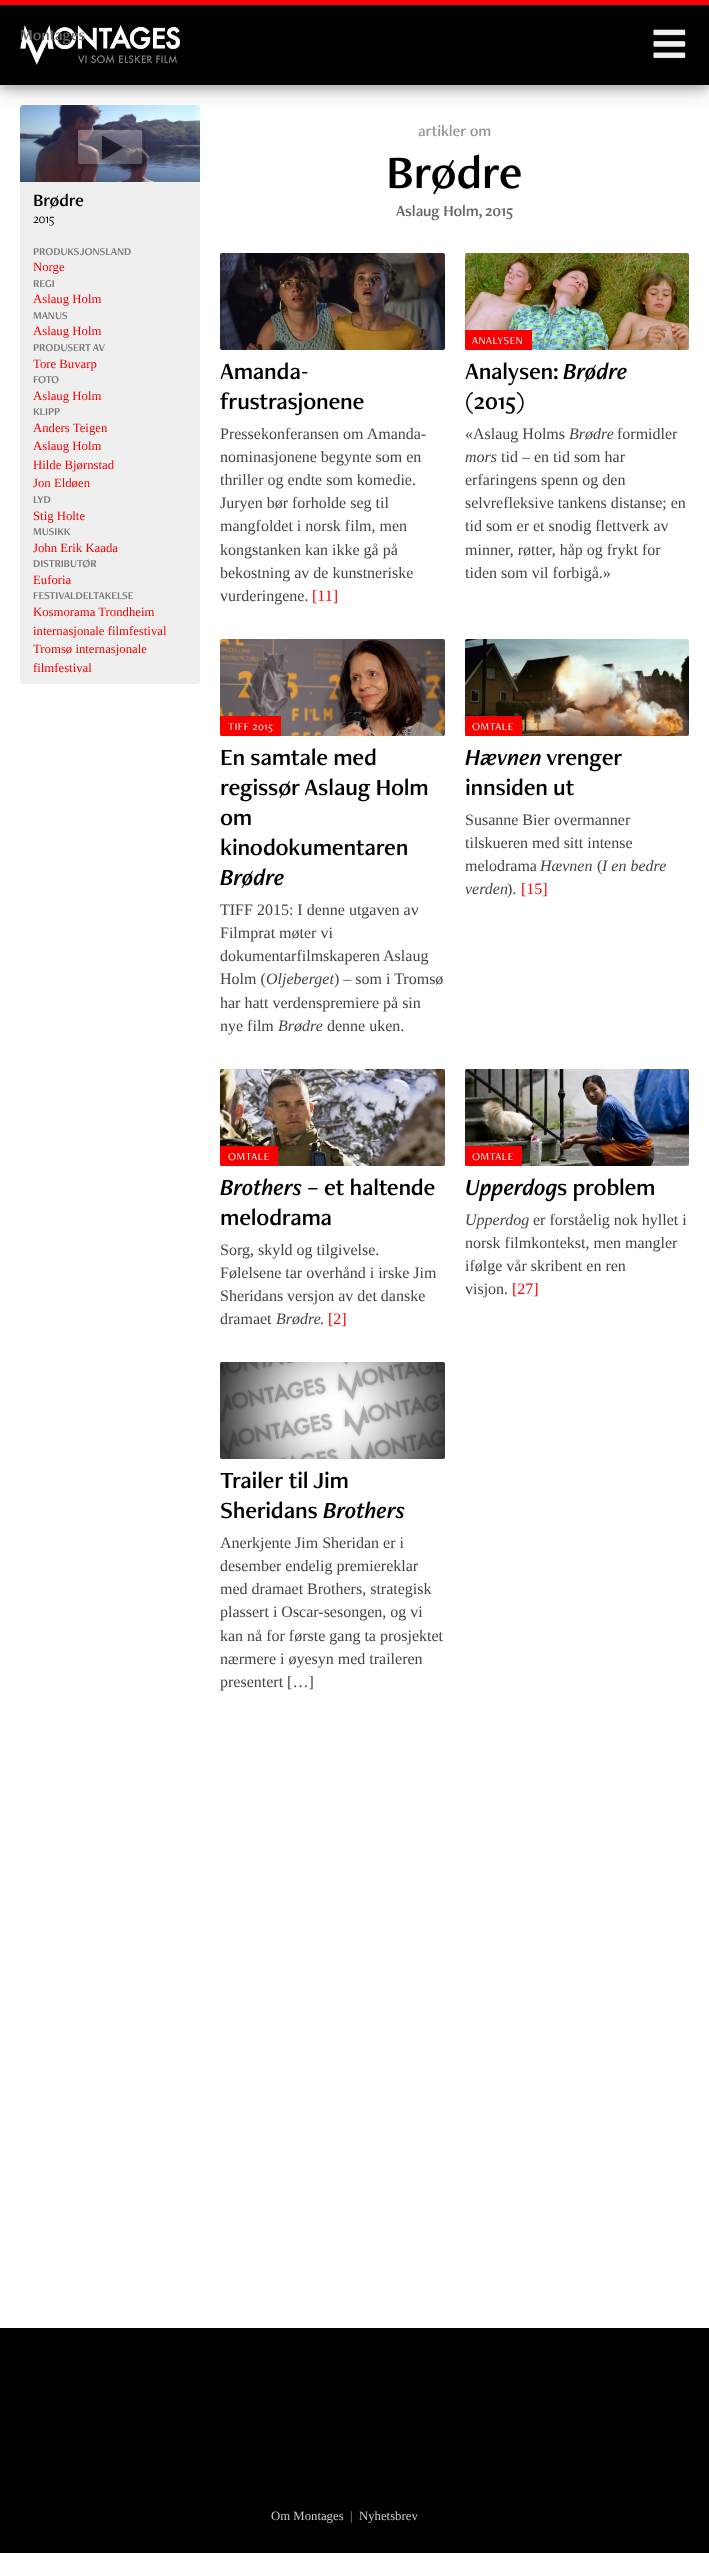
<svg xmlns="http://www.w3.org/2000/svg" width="709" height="2553">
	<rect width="100%" height="100%" fill="#FFFFFF" />
	<rect x="20" y="105" width="180" height="579" rx="4" fill="#EFEFEF" />
	<image x="20" y="105" width="180" height="77" href="assets/img3.png" />
	<rect x="0" y="6" width="709" height="85" fill="#000000" fill-opacity="0.19" filter="blur(10px)" />
	<rect x="0" y="4" width="709" height="85" fill="#000000" fill-opacity="0.2" filter="blur(4px)" />
	<rect x="0" y="5" width="709" height="80" fill="#000000" />
	<rect x="0" y="0" width="709" height="5" fill="#F60000" />
	<image x="20" y="25" width="160" height="40" href="assets/img1.png" />
	<text x="20" y="40" font-family="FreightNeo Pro" font-size="16" letter-spacing="-0.2" fill="#666666">Montages</text>
	<image x="649" y="25" width="40" height="40" href="assets/img2.png" />
	<image x="75" y="126" width="71" height="42" href="assets/img4.png" />
	<text x="33" y="206" font-family="FreightNeo Pro" font-size="18" letter-spacing="-0.25" fill="#000000">Brødre</text>
	<text x="33" y="223" font-family="'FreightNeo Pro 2'" font-size="13" letter-spacing="-0.25" fill="#000000">2015</text>
	<text x="33" y="255" font-family="FreightNeo Pro" font-size="10.9" letter-spacing="-0.1" fill="#777777">PRODUKSJONSLAND</text>
	<text x="33" y="271" font-family="Liberation Serif" font-size="12.75" fill="#F60000">Norge</text>
	<text x="33" y="287" font-family="FreightNeo Pro" font-size="10.9" letter-spacing="-0.1" fill="#777777">REGI</text>
	<text x="33" y="303" font-family="Liberation Serif" font-size="12.75" fill="#F60000">Aslaug Holm</text>
	<text x="33" y="319" font-family="FreightNeo Pro" font-size="10.9" letter-spacing="-0.1" fill="#777777">MANUS</text>
	<text x="33" y="335" font-family="Liberation Serif" font-size="12.75" fill="#F60000">Aslaug Holm</text>
	<text x="33" y="351" font-family="FreightNeo Pro" font-size="10.9" letter-spacing="-0.1" fill="#777777">PRODUSERT AV</text>
	<text x="33" y="368" font-family="Liberation Serif" font-size="12.75" fill="#F60000">Tore Buvarp</text>
	<text x="33" y="383" font-family="FreightNeo Pro" font-size="10.9" letter-spacing="-0.1" fill="#777777">FOTO</text>
	<text x="33" y="400" font-family="Liberation Serif" font-size="12.75" fill="#F60000">Aslaug Holm</text>
	<text x="33" y="415" font-family="FreightNeo Pro" font-size="10.9" letter-spacing="-0.1" fill="#777777">KLIPP</text>
	<g font-family="Liberation Serif" font-size="12.75" fill="#F60000">
		<text x="33" y="432">Anders Teigen</text>
		<text x="33" y="450">Aslaug Holm</text>
		<text x="33" y="469">Hilde Bjørnstad</text>
		<text x="33" y="487">Jon Eldøen</text>
	</g>
	<text x="33" y="503" font-family="FreightNeo Pro" font-size="10.9" letter-spacing="-0.1" fill="#777777">LYD</text>
	<text x="33" y="520" font-family="Liberation Serif" font-size="12.75" fill="#F60000">Stig Holte</text>
	<text x="33" y="535" font-family="FreightNeo Pro" font-size="10.9" letter-spacing="-0.1" fill="#777777">MUSIKK</text>
	<text x="33" y="552" font-family="Liberation Serif" font-size="12.75" fill="#F60000">John Erik Kaada</text>
	<text x="33" y="567" font-family="FreightNeo Pro" font-size="10.9" letter-spacing="-0.1" fill="#777777">DISTRIBUTØR</text>
	<text x="33" y="584" font-family="Liberation Serif" font-size="12.75" fill="#F60000">Euforia</text>
	<text x="33" y="599" font-family="FreightNeo Pro" font-size="10.9" letter-spacing="-0.1" fill="#777777">FESTIVALDELTAKELSE</text>
	<g font-family="Liberation Serif" font-size="12.75" fill="#F60000">
		<text x="33" y="616">Kosmorama Trondheim</text>
		<text x="33" y="635">internasjonale filmfestival</text>
		<text x="33" y="653">Tromsø internasjonale</text>
		<text x="33" y="672">filmfestival</text>
	</g>
	<text x="418" y="136" font-family="FreightNeo Pro" font-size="16" letter-spacing="-0.2" fill="#999999">artikler om</text>
	<text x="386" y="188" font-family="FreightNeo Pro" font-size="48" letter-spacing="-0.5" fill="#000000">Brødre</text>
	<text x="396" y="216" font-family="FreightNeo Pro" font-size="16" letter-spacing="-0.2" fill="#666666">Aslaug Holm, 2015</text>
	<image x="220" y="253" width="225" height="97" href="assets/img5.png" />
	<g font-family="FreightNeo Pro" font-size="24" letter-spacing="-0.25" fill="#000000">
		<text x="220" y="379">Amanda-</text>
		<text x="220" y="409">frustrasjonene</text>
	</g>
	<g font-family="Liberation Serif" font-size="16" fill="#444444">
		<text x="220" y="439">Pressekonferansen om Amanda-</text>
		<text x="220" y="462">nominasjonene begynte som en</text>
		<text x="220" y="485">thriller og endte som komedie.</text>
		<text x="220" y="508">Juryen bør forholde seg til</text>
		<text x="220" y="531">mangfoldet i norsk film, men</text>
		<text x="220" y="555">kongstanken kan ikke gå på</text>
		<text x="220" y="578">bekostning av de kunstneriske</text>
		<text x="220" y="601">vurderingene.</text>
	</g>
	<text x="312" y="601" font-family="Liberation Serif" font-size="16" fill="#F60000">[11]</text>
	<image x="465" y="253" width="224" height="97" href="assets/img6.png" />
	<path d="M465 330H532V350H467C466 350 465 349 465 348Z" fill="#F60000" />
	<text x="472" y="344" font-family="'FreightNeo Pro 2'" font-size="11" letter-spacing="0.5" fill="#FFFFFF">ANALYSEN</text>
	<text x="465" y="379" font-family="FreightNeo Pro" font-size="24" letter-spacing="-0.25" fill="#000000">Analysen:</text>
	<text x="563" y="379" font-family="FreightNeo Pro" font-size="24" font-weight="600" font-style="italic" letter-spacing="-0.25" fill="#000000">Brødre</text>
	<text x="465" y="409" font-family="FreightNeo Pro" font-size="24" letter-spacing="-0.25" fill="#000000">(2015)</text>
	<text x="465" y="439" font-family="Liberation Serif" font-size="16" fill="#444444">«Aslaug Holms</text>
	<text x="569" y="439" font-family="Liberation Serif" font-size="16" font-style="italic" fill="#444444">Brødre</text>
	<text x="617" y="439" font-family="Liberation Serif" font-size="16" fill="#444444">formidler</text>
	<text x="465" y="462" font-family="Liberation Serif" font-size="16" font-style="italic" fill="#444444">mors</text>
	<g font-family="Liberation Serif" font-size="16" fill="#444444">
		<text x="501" y="462">tid – en tid som har</text>
		<text x="465" y="485">erfaringens spenn og den</text>
		<text x="465" y="508">selvrefleksive tankens distanse; en</text>
		<text x="465" y="531">tid som er et snodig flettverk av</text>
		<text x="465" y="555">minner, røtter, håp og frykt for</text>
		<text x="465" y="578">tiden som vil forbigå.»</text>
	</g>
	<image x="220" y="639" width="225" height="97" href="assets/img7.png" />
	<path d="M220 716H281V736H222C221 736 220 735 220 734Z" fill="#F60000" />
	<text x="228" y="730" font-family="'FreightNeo Pro 2'" font-size="11" letter-spacing="0.5" fill="#FFFFFF">TIFF 2015</text>
	<g font-family="FreightNeo Pro" font-size="24" letter-spacing="-0.25" fill="#000000">
		<text x="220" y="765">En samtale med</text>
		<text x="220" y="795">regissør Aslaug Holm</text>
		<text x="220" y="825">om</text>
		<text x="220" y="855">kinodokumentaren</text>
	</g>
	<text x="220" y="885" font-family="FreightNeo Pro" font-size="24" font-weight="600" font-style="italic" letter-spacing="-0.25" fill="#000000">Brødre</text>
	<g font-family="Liberation Serif" font-size="16" fill="#444444">
		<text x="220" y="915">TIFF 2015: I denne utgaven av</text>
		<text x="220" y="938">Filmprat møter vi</text>
		<text x="220" y="961">dokumentarfilmskaperen Aslaug</text>
		<text x="220" y="984">Holm (</text>
	</g>
	<text x="266" y="984" font-family="Liberation Serif" font-size="16" font-style="italic" fill="#444444">Oljeberget</text>
	<g font-family="Liberation Serif" font-size="16" fill="#444444">
		<text x="334" y="984">) – som i Tromsø</text>
		<text x="220" y="1008">har hatt verdenspremiere på sin</text>
		<text x="220" y="1031">nye film</text>
	</g>
	<text x="278" y="1031" font-family="Liberation Serif" font-size="16" font-style="italic" fill="#444444">Brødre</text>
	<text x="327" y="1031" font-family="Liberation Serif" font-size="16" fill="#444444">denne uken.</text>
	<image x="465" y="639" width="224" height="97" href="assets/img8.png" />
	<path d="M465 716H522V736H467C466 736 465 735 465 734Z" fill="#F60000" />
	<text x="472" y="730" font-family="'FreightNeo Pro 2'" font-size="11" letter-spacing="0.5" fill="#FFFFFF">OMTALE</text>
	<text x="465" y="765" font-family="FreightNeo Pro" font-size="24" font-weight="600" font-style="italic" letter-spacing="-0.25" fill="#000000">Hævnen</text>
	<g font-family="FreightNeo Pro" font-size="24" letter-spacing="-0.25" fill="#000000">
		<text x="546" y="765">vrenger</text>
		<text x="465" y="795">innsiden ut</text>
	</g>
	<g font-family="Liberation Serif" font-size="16" fill="#444444">
		<text x="465" y="825">Susanne Bier overmanner</text>
		<text x="465" y="848">tilskueren med sitt intense</text>
		<text x="465" y="871">melodrama</text>
	</g>
	<text x="540" y="871" font-family="Liberation Serif" font-size="16" font-style="italic" fill="#444444">Hævnen</text>
	<text x="597" y="871" font-family="Liberation Serif" font-size="16" fill="#444444">(</text>
	<g font-family="Liberation Serif" font-size="16" font-style="italic" fill="#444444">
		<text x="602" y="871">I en bedre</text>
		<text x="465" y="894">verden</text>
	</g>
	<text x="507" y="894" font-family="Liberation Serif" font-size="16" fill="#444444">).</text>
	<text x="521" y="894" font-family="Liberation Serif" font-size="16" fill="#F60000">[15]</text>
	<image x="220" y="1069" width="225" height="97" href="assets/img9.png" />
	<path d="M220 1146H278V1166H222C221 1166 220 1165 220 1164Z" fill="#F60000" />
	<text x="228" y="1160" font-family="'FreightNeo Pro 2'" font-size="11" letter-spacing="0.5" fill="#FFFFFF">OMTALE</text>
	<text x="220" y="1195" font-family="FreightNeo Pro" font-size="24" font-weight="600" font-style="italic" letter-spacing="-0.25" fill="#000000">Brothers</text>
	<g font-family="FreightNeo Pro" font-size="24" letter-spacing="-0.25" fill="#000000">
		<text x="307" y="1195">– et haltende</text>
		<text x="220" y="1225">melodrama</text>
	</g>
	<g font-family="Liberation Serif" font-size="16" fill="#444444">
		<text x="220" y="1255">Sorg, skyld og tilgivelse.</text>
		<text x="220" y="1278">Følelsene tar overhånd i irske Jim</text>
		<text x="220" y="1301">Sheridans versjon av det danske</text>
		<text x="220" y="1324">dramaet</text>
	</g>
	<text x="276" y="1324" font-family="Liberation Serif" font-size="16" font-style="italic" fill="#444444">Brødre</text>
	<text x="320" y="1324" font-family="Liberation Serif" font-size="16" fill="#444444">.</text>
	<text x="328" y="1324" font-family="Liberation Serif" font-size="16" fill="#F60000">[2]</text>
	<image x="465" y="1069" width="224" height="97" href="assets/img10.png" />
	<path d="M465 1146H522V1166H467C466 1166 465 1165 465 1164Z" fill="#F60000" />
	<text x="472" y="1160" font-family="'FreightNeo Pro 2'" font-size="11" letter-spacing="0.5" fill="#FFFFFF">OMTALE</text>
	<text x="465" y="1195" font-family="FreightNeo Pro" font-size="24" font-weight="600" font-style="italic" letter-spacing="-0.25" fill="#000000">Upperdog</text>
	<text x="557" y="1195" font-family="FreightNeo Pro" font-size="24" letter-spacing="-0.25" fill="#000000">s problem</text>
	<text x="465" y="1225" font-family="Liberation Serif" font-size="16" font-style="italic" fill="#444444">Upperdog</text>
	<g font-family="Liberation Serif" font-size="16" fill="#444444">
		<text x="533" y="1225">er forståelig nok hyllet i</text>
		<text x="465" y="1248">norsk filmkontekst, men mangler</text>
		<text x="465" y="1271">ifølge vår skribent en ren</text>
		<text x="465" y="1294">visjon.</text>
	</g>
	<text x="512" y="1294" font-family="Liberation Serif" font-size="16" fill="#F60000">[27]</text>
	<image x="220" y="1362" width="225" height="97" href="assets/img11.png" />
	<g font-family="FreightNeo Pro" font-size="24" letter-spacing="-0.25" fill="#000000">
		<text x="220" y="1488">Trailer til Jim</text>
		<text x="220" y="1518">Sheridans</text>
	</g>
	<text x="323" y="1518" font-family="FreightNeo Pro" font-size="24" font-weight="600" font-style="italic" letter-spacing="-0.25" fill="#000000">Brothers</text>
	<g font-family="Liberation Serif" font-size="16" fill="#444444">
		<text x="220" y="1548">Anerkjente Jim Sheridan er i</text>
		<text x="220" y="1571">desember endelig premiereklar</text>
		<text x="220" y="1594">med dramaet Brothers, strategisk</text>
		<text x="220" y="1617">plassert i Oscar-sesongen, og vi</text>
		<text x="220" y="1641">kan nå for første gang ta prosjektet</text>
		<text x="220" y="1664">nærmere i øyesyn med traileren</text>
		<text x="220" y="1687">presentert […]</text>
	</g>
	<rect x="0" y="2328" width="709" height="225" fill="#000000" />
	<text x="271" y="2520" font-family="Liberation Serif" font-size="12.75" fill="#CCCCCC">Om Montages</text>
	<text x="350" y="2520" font-family="Liberation Serif" font-size="12.75" fill="#999999">|</text>
	<text x="359" y="2520" font-family="Liberation Serif" font-size="12.75" fill="#CCCCCC">Nyhetsbrev</text>
</svg>
